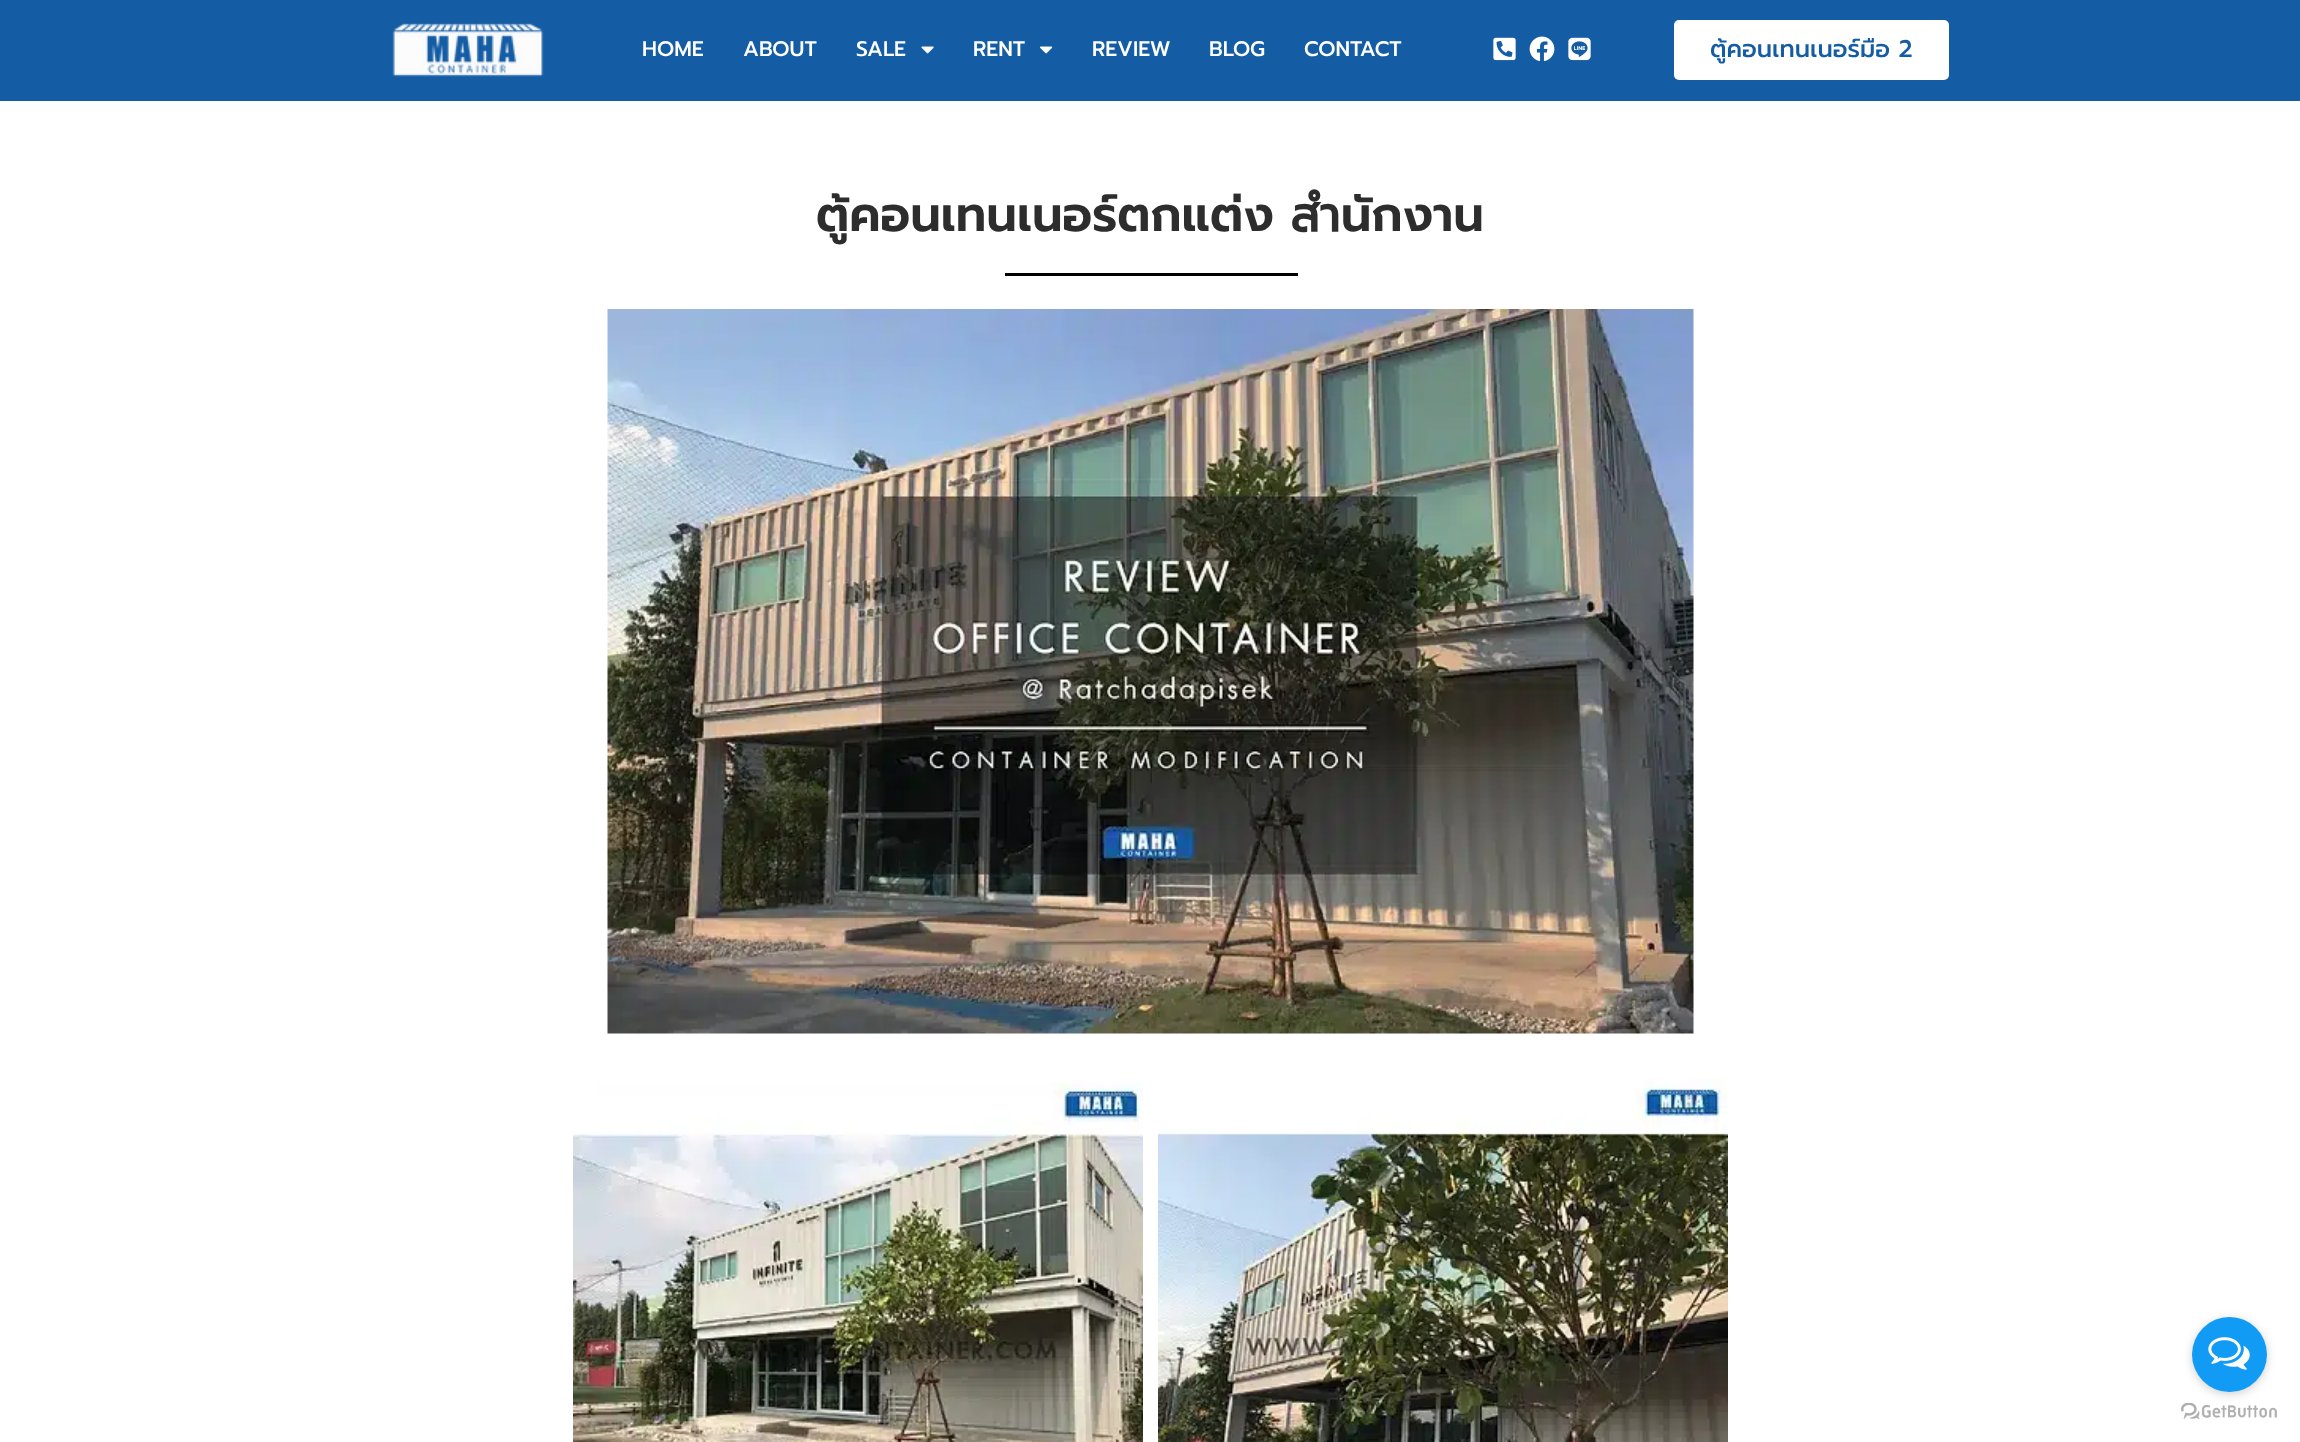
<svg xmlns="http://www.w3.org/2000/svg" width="2300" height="1442">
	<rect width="100%" height="100%" fill="#FFFFFF" />
	<rect x="0" y="0" width="2300" height="101" fill="#145CA4" />
	<image x="392" y="23" width="152" height="54" href="assets/img1.png" />
	<g font-family="Prompt" font-size="21" font-weight="500" fill="#FFFFFF">
		<text x="642" y="56">HOME</text>
		<text x="743" y="56">ABOUT</text>
		<text x="856" y="56">SALE</text>
	</g>
	<image x="921" y="46" width="13" height="8" href="assets/img2.png" />
	<text x="973" y="56" font-family="Prompt" font-size="21" font-weight="500" fill="#FFFFFF">RENT</text>
	<image x="1040" y="46" width="13" height="8" href="assets/img3.png" />
	<g font-family="Prompt" font-size="21" font-weight="500" fill="#FFFFFF">
		<text x="1092" y="56">REVIEW</text>
		<text x="1209" y="56">BLOG</text>
		<text x="1304" y="56">CONTACT</text>
	</g>
	<image x="1493" y="37" width="23" height="24" href="assets/img4.png" />
	<image x="1529" y="36" width="26" height="26" href="assets/img5.png" />
	<image x="1568" y="37" width="23" height="24" href="assets/img6.png" />
	<rect x="1674" y="20" width="275" height="60" rx="5" fill="#FFFFFF" />
	<text x="1710" y="57" font-family="Prompt" font-size="24" font-weight="500" fill="#145CA4">ตู้คอนเทนเนอร์มือ 2</text>
	<text x="816" y="231" font-family="Prompt" font-size="48" font-weight="600" fill="#2D2D2D">ตู้คอนเทนเนอร์ตกแต่ง สำนักงาน</text>
	<rect x="1005" y="273" width="293" height="3" fill="#000000" />
	<image x="607" y="309" width="1087" height="725" href="assets/img7.png" />
	<image x="573" y="1082" width="570" height="360" href="assets/img8.png" />
	<image x="1158" y="1079" width="570" height="363" href="assets/img9.png" />
	<image x="2181" y="1403" width="96" height="16" href="assets/img11.png" />
	<rect x="2192" y="1319" width="75" height="75" rx="37.5" fill="#888888" fill-opacity="0.4" filter="blur(5px)" />
	<circle cx="2229.5" cy="1354.5" r="37.5" fill="#129BF4" />
	<image x="2208" y="1337" width="42" height="33" href="assets/img10.png" />
</svg>
